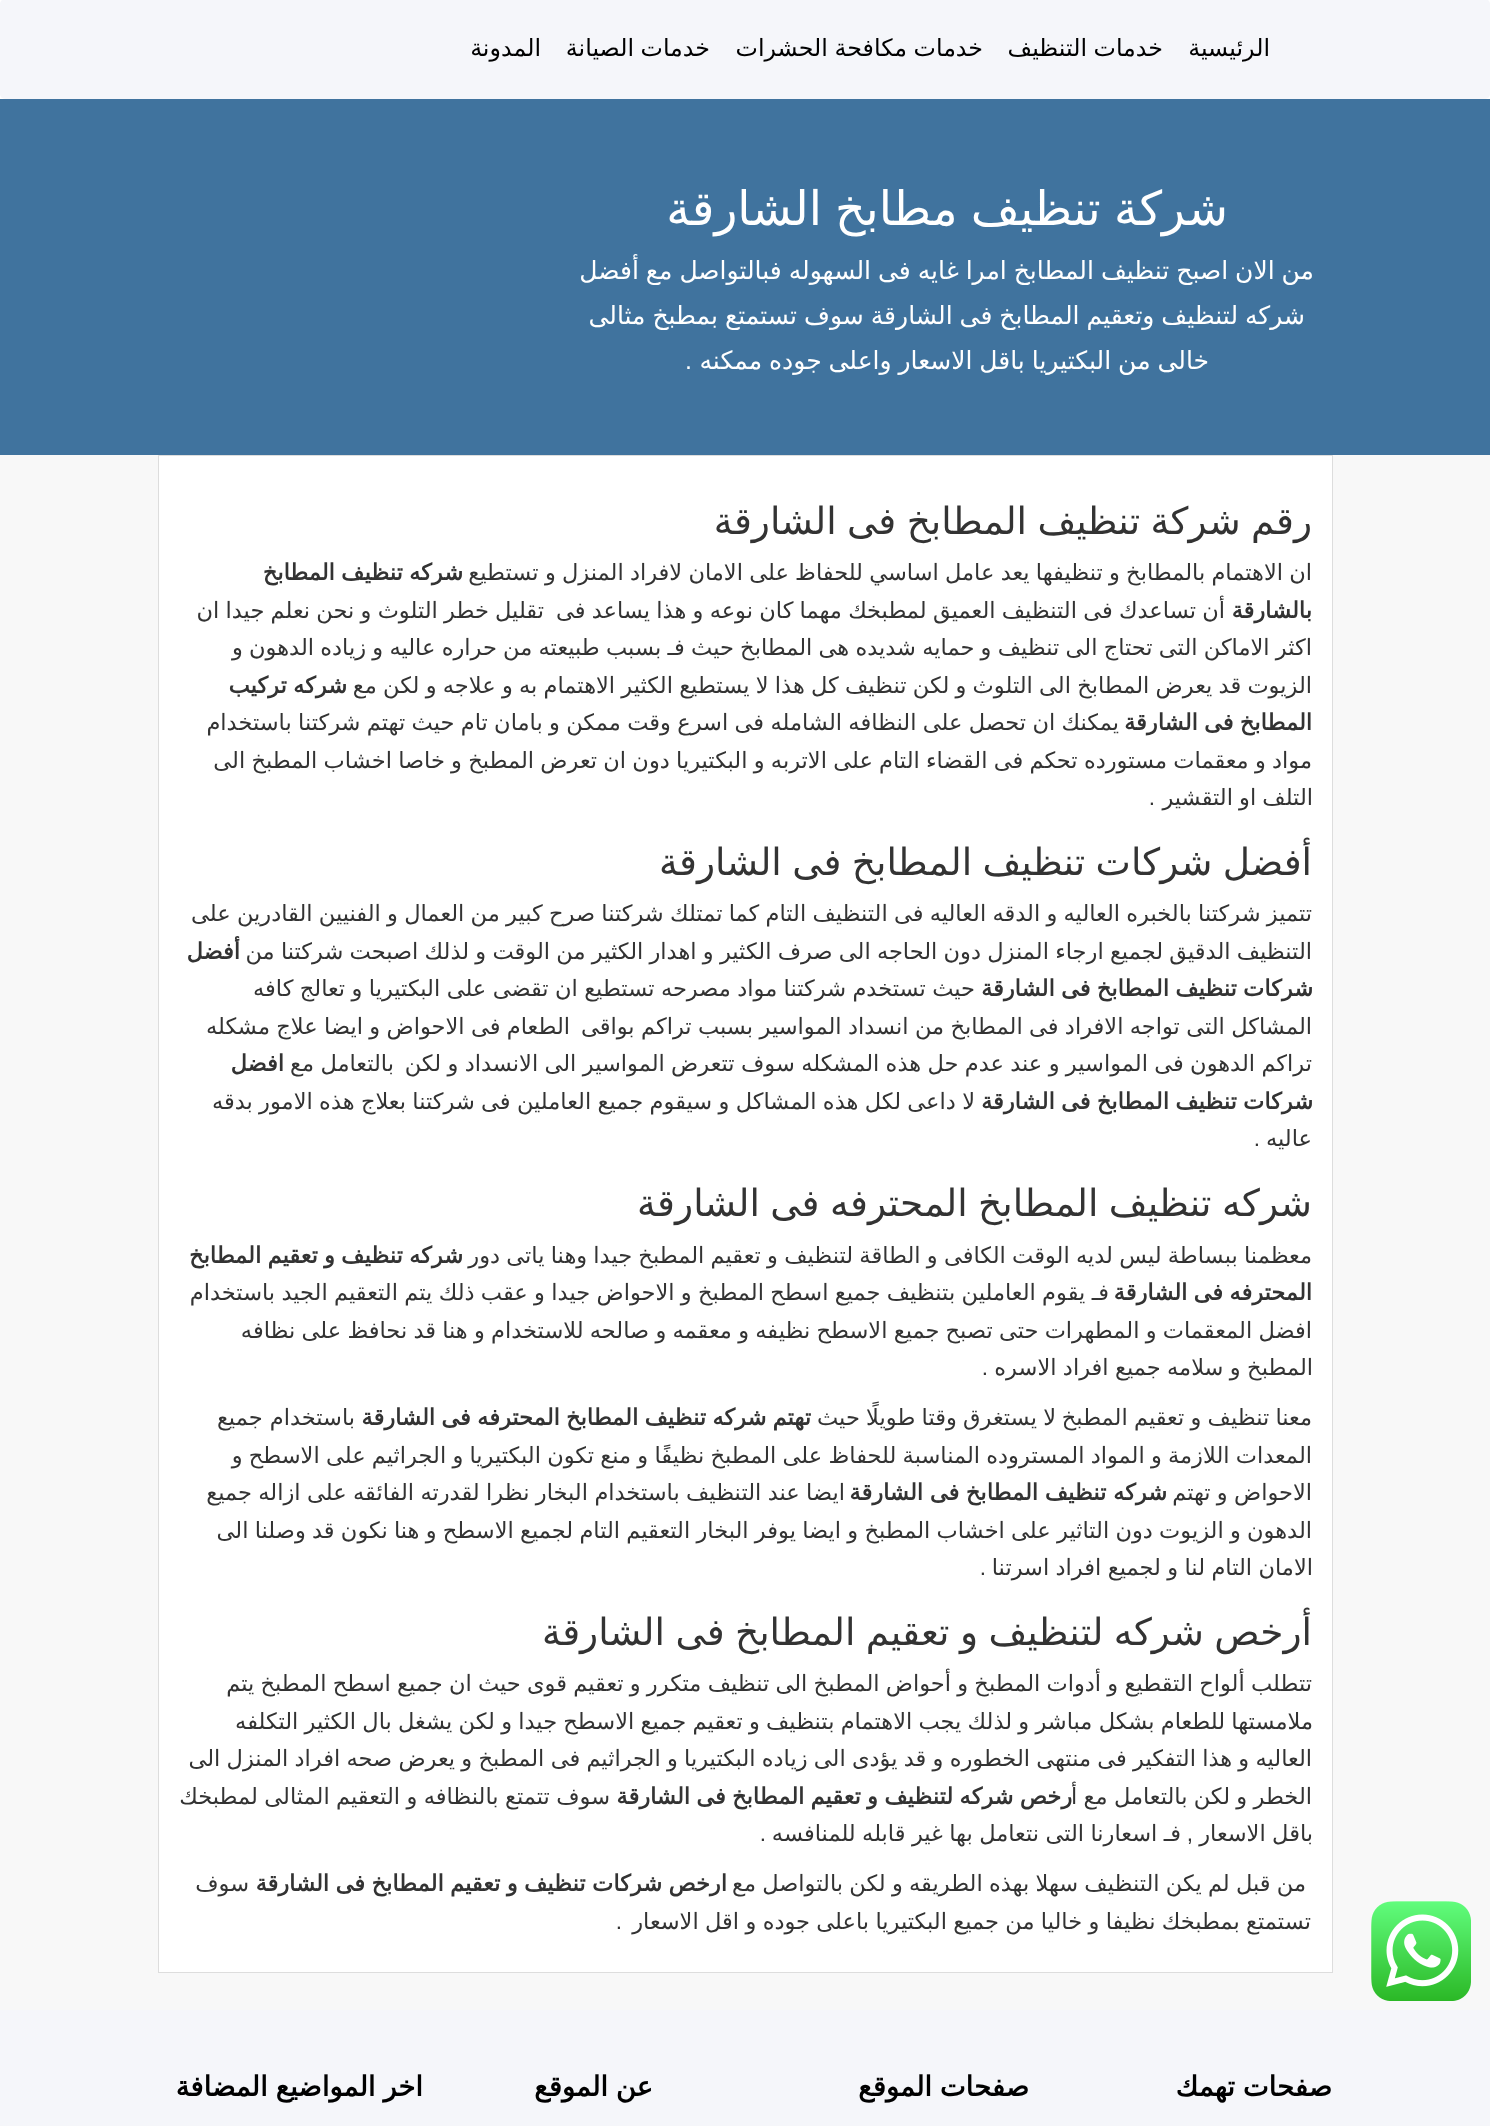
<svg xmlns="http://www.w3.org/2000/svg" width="1490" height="2126">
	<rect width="100%" height="100%" fill="#FFFFFF" />
	<rect x="0" y="-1" width="1490" height="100" rx="5" fill="#F5F6FA" />
	<g font-family="DejaVu Sans" font-size="23.75" direction="rtl" fill="#000000">
		<text x="1270" y="56">الرئيسية</text>
		<text x="1163" y="56" word-spacing="-1">خدمات التنظيف</text>
		<text x="983" y="56" word-spacing="-1">خدمات مكافحة الحشرات</text>
		<text x="710" y="56" word-spacing="-1">خدمات الصيانة</text>
		<text x="541" y="56">المدونة</text>
	</g>
	<rect x="0" y="455" width="1490" height="1555" fill="#F8F8F8" />
	<rect x="0" y="99" width="1490" height="356" fill="#40739E" />
	<text x="1228" y="225" word-spacing="-2" font-family="DejaVu Sans" font-size="47.5" direction="rtl" fill="#FFFFFF">شركة تنظيف مطابخ الشارقة</text>
	<g font-family="DejaVu Sans" font-size="25" direction="rtl" fill="#FFFFFF">
		<text x="1314" y="279" word-spacing="-1">من الان اصبح تنظيف المطابخ امرا غايه فى السهوله فبالتواصل مع أفضل</text>
		<text x="1305" y="324" word-spacing="-1">شركه لتنظيف وتعقيم المطابخ فى الشارقة سوف تستمتع بمطبخ مثالى</text>
		<text x="1209" y="369" word-spacing="-1">خالى من البكتيريا باقل الاسعار واعلى جوده ممكنه</text>
	</g>
	<text x="692" y="369" font-family="Liberation Sans" font-size="25" direction="rtl" fill="#FFFFFF">.</text>
	<rect x="158.5" y="455.5" width="1174" height="1517" fill="#FFFFFF" stroke="#DDDDDD" />
	<text x="1312" y="534" word-spacing="-1.5" font-family="DejaVu Sans" font-size="37.5" direction="rtl" fill="#333333">رقم شركة تنظيف المطابخ فى الشارقة</text>
	<text x="1312" y="580" word-spacing="-0.9" font-family="DejaVu Sans" font-size="22.5" direction="rtl" fill="#333333">ان الاهتمام بالمطابخ و تنظيفها يعد عامل اساسي للحفاظ على الامان لافراد المنزل و تستطيع</text>
	<g font-family="DejaVu Sans" font-size="22.5" font-weight="700" direction="rtl" fill="#333333">
		<text x="463" y="580" word-spacing="-0.9">شركه تنظيف المطابخ</text>
		<text x="1312" y="618">بالشارقة</text>
	</g>
	<g font-family="DejaVu Sans" font-size="22.5" direction="rtl" fill="#333333">
		<text x="1225" y="618" word-spacing="-0.9">أن تساعدك فى التنظيف العميق لمطبخك مهما كان نوعه و هذا يساعد فى</text>
		<text x="544" y="618" word-spacing="-0.9">تقليل خطر التلوث و نحن نعلم جيدا ان</text>
		<text x="1312" y="655" word-spacing="-0.9">اكثر الاماكن التى تحتاج الى تنظيف و حمايه شديده هى المطابخ حيث فـ بسبب طبيعته من حراره عاليه و زياده الدهون و</text>
		<text x="1312" y="693" word-spacing="-0.9">الزيوت قد يعرض المطابخ الى التلوث و لكن تنظيف كل هذا لا يستطيع الكثير الاهتمام به و علاجه و لكن مع</text>
	</g>
	<g font-family="DejaVu Sans" font-size="22.5" font-weight="700" direction="rtl" fill="#333333">
		<text x="347" y="693" word-spacing="-0.9">شركه تركيب</text>
		<text x="1312" y="730" word-spacing="-0.9">المطابخ فى الشارقة</text>
	</g>
	<g font-family="DejaVu Sans" font-size="22.5" direction="rtl" fill="#333333">
		<text x="1119" y="730" word-spacing="-0.8">يمكنك ان تحصل على النظافه الشامله فى اسرع وقت ممكن و بامان تام حيث تهتم شركتنا باستخدام</text>
		<text x="1312" y="768" word-spacing="-0.9">مواد و معقمات مستورده تحكم فى القضاء التام على الاتربه و البكتيريا دون ان تعرض المطبخ و خاصا اخشاب المطبخ الى</text>
		<text x="1313" y="805" word-spacing="-1">التلف او التقشير</text>
	</g>
	<text x="1155" y="805" font-family="Liberation Sans" font-size="22.5" direction="rtl" fill="#333333">.</text>
	<text x="1312" y="875" word-spacing="-1.5" font-family="DejaVu Sans" font-size="37.5" direction="rtl" fill="#333333">أفضل شركات تنظيف المطابخ فى الشارقة</text>
	<g font-family="DejaVu Sans" font-size="22.5" direction="rtl" fill="#333333">
		<text x="1312" y="921" word-spacing="-0.9">تتميز شركتنا بالخبره العاليه و الدقه العاليه فى التنظيف التام كما تمتلك شركتنا صرح كبير من العمال و الفنيين القادرين على</text>
		<text x="1312" y="959" word-spacing="-0.9">التنظيف الدقيق لجميع ارجاء المنزل دون الحاجه الى صرف الكثير و اهدار الكثير من الوقت و لذلك اصبحت شركتنا من</text>
	</g>
	<g font-family="DejaVu Sans" font-size="22.5" font-weight="700" direction="rtl" fill="#333333">
		<text x="240" y="959">أفضل</text>
		<text x="1313" y="996" word-spacing="-0.9">شركات تنظيف المطابخ فى الشارقة</text>
	</g>
	<g font-family="DejaVu Sans" font-size="22.5" direction="rtl" fill="#333333">
		<text x="975" y="996" word-spacing="-0.75">حيث تستخدم شركتنا مواد مصرحه تستطيع ان تقضى على البكتيريا و تعالج كافه</text>
		<text x="1312" y="1034" word-spacing="-0.8">المشاكل التى تواجه الافراد فى المطابخ من انسداد المواسير بسبب تراكم بواقى</text>
		<text x="570" y="1034" word-spacing="-0.8">الطعام فى الاحواض و ايضا علاج مشكله</text>
		<text x="1312" y="1071" word-spacing="-0.8">تراكم الدهون فى المواسير و عند عدم حل هذه المشكله سوف تتعرض المواسير الى الانسداد و لكن</text>
		<text x="394" y="1071" word-spacing="-0.8">بالتعامل مع</text>
	</g>
	<g font-family="DejaVu Sans" font-size="22.5" font-weight="700" direction="rtl" fill="#333333">
		<text x="284" y="1071">افضل</text>
		<text x="1313" y="1109" word-spacing="-0.9">شركات تنظيف المطابخ فى الشارقة</text>
	</g>
	<g font-family="DejaVu Sans" font-size="22.5" direction="rtl" fill="#333333">
		<text x="975" y="1109" word-spacing="-0.8">لا داعى لكل هذه المشاكل و سيقوم جميع العاملين فى شركتنا بعلاج هذه الامور بدقه</text>
		<text x="1312" y="1146">عاليه</text>
	</g>
	<text x="1260" y="1146" font-family="Liberation Sans" font-size="22.5" direction="rtl" fill="#333333">.</text>
	<text x="1312" y="1216" word-spacing="-1.5" font-family="DejaVu Sans" font-size="37.5" direction="rtl" fill="#333333">شركه تنظيف المطابخ المحترفه فى الشارقة</text>
	<text x="1312" y="1263" word-spacing="-0.9" font-family="DejaVu Sans" font-size="22.5" direction="rtl" fill="#333333">معظمنا ببساطة ليس لديه الوقت الكافى و الطاقة لتنظيف و تعقيم المطبخ جيدا وهنا ياتى دور</text>
	<g font-family="DejaVu Sans" font-size="22.5" font-weight="700" direction="rtl" fill="#333333">
		<text x="463" y="1263" word-spacing="-0.9">شركه تنظيف و تعقيم المطابخ</text>
		<text x="1312" y="1300" word-spacing="-0.9">المحترفه فى الشارقة</text>
	</g>
	<g font-family="DejaVu Sans" font-size="22.5" direction="rtl" fill="#333333">
		<text x="1109" y="1300" word-spacing="-0.8">فـ يقوم العاملين بتنظيف جميع اسطح المطبخ و الاحواض جيدا و عقب ذلك يتم التعقيم الجيد باستخدام</text>
		<text x="1312" y="1338" word-spacing="-0.9">افضل المعقمات و المطهرات حتى تصبح جميع الاسطح نظيفه و معقمه و صالحه للاستخدام و هنا قد نحافظ على نظافه</text>
		<text x="1313" y="1375" word-spacing="-0.75">المطبخ و سلامه جميع افراد الاسره</text>
	</g>
	<text x="988" y="1375" font-family="Liberation Sans" font-size="22.5" direction="rtl" fill="#333333">.</text>
	<g font-family="DejaVu Sans" font-size="22.5" direction="rtl" fill="#333333">
		<text x="1312" y="1425" word-spacing="-0.9">معنا تنظيف و تعقيم المطبخ</text>
		<text x="1056" y="1425" word-spacing="-0.9">لا يستغرق وقتا طويلًا حيث</text>
	</g>
	<text x="811" y="1425" word-spacing="-0.9" font-family="DejaVu Sans" font-size="22.5" font-weight="700" direction="rtl" fill="#333333">تهتم شركه تنظيف المطابخ المحترفه فى الشارقة</text>
	<g font-family="DejaVu Sans" font-size="22.5" direction="rtl" fill="#333333">
		<text x="355" y="1425">باستخدام جميع</text>
		<text x="1312" y="1463" word-spacing="-0.9">المعدات اللازمة و المواد المستروده المناسبة للحفاظ على المطبخ نظيفًا و منع تكون البكتيريا و الجراثيم على الاسطح و</text>
		<text x="1312" y="1500" word-spacing="-0.9">الاحواض و تهتم</text>
	</g>
	<text x="1167" y="1500" word-spacing="-0.5" font-family="DejaVu Sans" font-size="22.5" font-weight="700" direction="rtl" fill="#333333">شركه تنظيف المطابخ فى الشارقة</text>
	<g font-family="DejaVu Sans" font-size="22.5" direction="rtl" fill="#333333">
		<text x="845" y="1500" word-spacing="-0.75">ايضا عند التنظيف باستخدام البخار نظرا لقدرته الفائقه على ازاله جميع</text>
		<text x="1312" y="1538" word-spacing="-0.9">الدهون و الزيوت دون التاثير على اخشاب المطبخ و ايضا يوفر البخار التعقيم التام لجميع الاسطح و هنا نكون قد وصلنا الى</text>
		<text x="1313" y="1575" word-spacing="-0.75">الامان التام لنا و لجميع افراد اسرتنا</text>
	</g>
	<text x="986" y="1575" font-family="Liberation Sans" font-size="22.5" direction="rtl" fill="#333333">.</text>
	<text x="1312" y="1645" word-spacing="-1.5" font-family="DejaVu Sans" font-size="37.5" direction="rtl" fill="#333333">أرخص شركه لتنظيف و تعقيم المطابخ فى الشارقة</text>
	<g font-family="DejaVu Sans" font-size="22.5" direction="rtl" fill="#333333">
		<text x="1312" y="1691" word-spacing="-0.9">تتطلب ألواح التقطيع و أدوات المطبخ و أحواض المطبخ الى تنظيف متكرر و تعقيم قوى حيث ان جميع اسطح المطبخ يتم</text>
		<text x="1313" y="1729" word-spacing="-0.9">ملامستها للطعام بشكل مباشر و لذلك يجب الاهتمام بتنظيف و تعقيم جميع الاسطح جيدا و لكن يشغل بال الكثير التكلفه</text>
		<text x="1312" y="1766" word-spacing="-0.9">العاليه و هذا التفكير فى منتهى الخطوره و قد يؤدى الى زياده البكتيريا و الجراثيم فى المطبخ و يعرض صحه افراد المنزل الى</text>
		<text x="1312" y="1804" word-spacing="-0.9">الخطر و لكن بالتعامل مع أ</text>
	</g>
	<text x="1072" y="1804" word-spacing="-0.9" font-family="DejaVu Sans" font-size="22.5" font-weight="700" direction="rtl" fill="#333333">رخص شركه لتنظيف و تعقيم المطابخ فى الشارقة</text>
	<g font-family="DejaVu Sans" font-size="22.5" direction="rtl" fill="#333333">
		<text x="610" y="1804" word-spacing="-0.75">سوف تتمتع بالنظافه و التعقيم المثالى لمطبخك</text>
		<text x="1313" y="1841" word-spacing="-0.75">باقل الاسعار</text>
	</g>
	<text x="1193" y="1841" font-family="Liberation Sans" font-size="22.5" direction="rtl" fill="#333333">,</text>
	<text x="1181" y="1841" word-spacing="-0.75" font-family="DejaVu Sans" font-size="22.5" direction="rtl" fill="#333333">فـ اسعارنا التى نتعامل بها غير قابله للمنافسه</text>
	<text x="766" y="1841" font-family="Liberation Sans" font-size="22.5" direction="rtl" fill="#333333">.</text>
	<text x="1306" y="1891" word-spacing="-0.9" font-family="DejaVu Sans" font-size="22.5" direction="rtl" fill="#333333">من قبل لم يكن التنظيف سهلا بهذه الطريقه و لكن بالتواصل مع</text>
	<text x="727" y="1891" word-spacing="-0.75" font-family="DejaVu Sans" font-size="22.5" font-weight="700" direction="rtl" fill="#333333">ارخص شركات تنظيف و تعقيم المطابخ فى الشارقة</text>
	<g font-family="DejaVu Sans" font-size="22.5" direction="rtl" fill="#333333">
		<text x="249" y="1891">سوف</text>
		<text x="1311" y="1929" word-spacing="-0.8">تستمتع بمطبخك نظيفا و خاليا من جميع البكتيريا باعلى جوده و اقل الاسعار</text>
	</g>
	<text x="622" y="1929" font-family="Liberation Sans" font-size="22.5" direction="rtl" fill="#333333">.</text>
	<image x="1371" y="1901" width="100" height="100" href="assets/img1.png" />
	<rect x="0" y="2010" width="1490" height="116" fill="#F5F6FA" />
	<g font-family="DejaVu Sans" font-size="27.5" font-weight="700" direction="rtl" fill="#000000">
		<text x="1332" y="2096" word-spacing="-1">صفحات تهمك</text>
		<text x="1029" y="2096" word-spacing="-1">صفحات الموقع</text>
		<text x="653" y="2096" word-spacing="-1">عن الموقع</text>
		<text x="423" y="2096" word-spacing="-1">اخر المواضيع المضافة</text>
	</g>
</svg>
